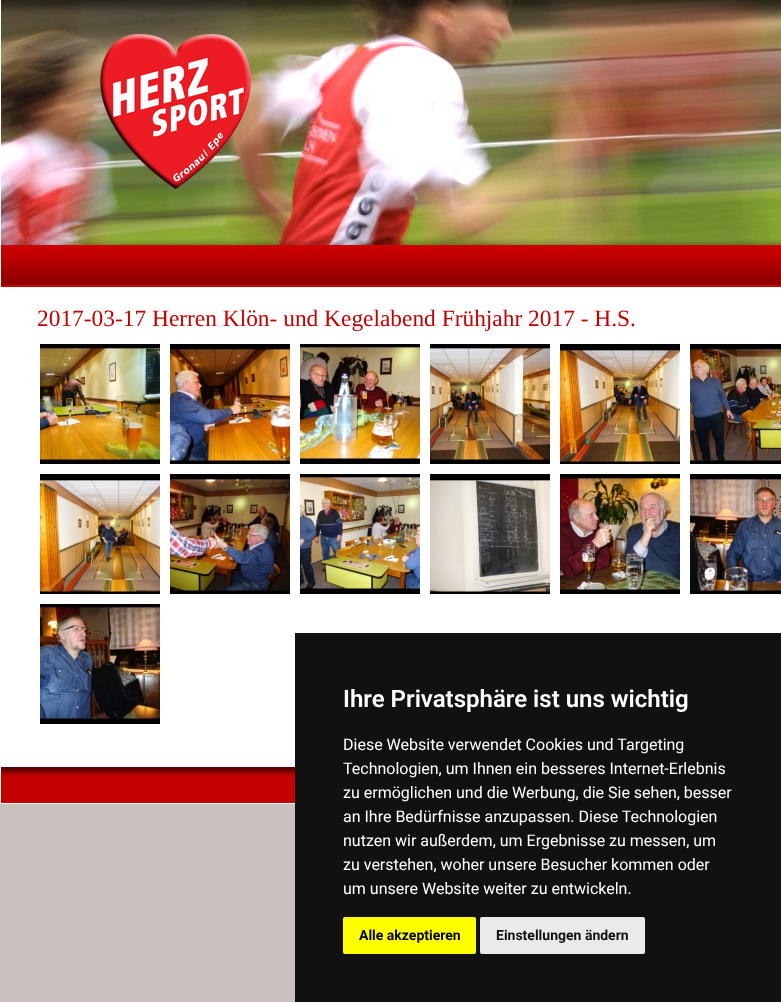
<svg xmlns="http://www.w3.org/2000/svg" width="781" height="1002">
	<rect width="100%" height="100%" fill="#C9C1BE" />
	<rect x="0.5" y="-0.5" width="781" height="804" fill="none" stroke="#FFFFFF" />
	<image x="1" y="0" width="780" height="245" href="assets/img1.png" />
	<image x="1" y="245" width="780" height="42" href="assets/img2.png" />
	<rect x="1" y="287" width="780" height="480" fill="#FFFFFF" />
	<text x="37" y="326" font-family="Liberation Serif" font-size="23.4" fill="#C40000">2017-03-17 Herren Klön- und Kegelabend Frühjahr 2017 - H.S.</text>
	<image x="40" y="344" width="120" height="120" href="assets/img3.png" />
	<image x="170" y="344" width="120" height="120" href="assets/img4.png" />
	<image x="300" y="344" width="120" height="120" href="assets/img5.png" />
	<image x="430" y="344" width="120" height="120" href="assets/img6.png" />
	<image x="560" y="344" width="120" height="120" href="assets/img7.png" />
	<image x="690" y="344" width="91" height="120" href="assets/img8.png" />
	<image x="40" y="474" width="120" height="120" href="assets/img9.png" />
	<image x="170" y="474" width="120" height="120" href="assets/img10.png" />
	<image x="300" y="474" width="120" height="120" href="assets/img11.png" />
	<image x="430" y="474" width="120" height="120" href="assets/img12.png" />
	<image x="560" y="474" width="120" height="120" href="assets/img13.png" />
	<image x="690" y="474" width="91" height="120" href="assets/img14.png" />
	<image x="40" y="604" width="120" height="120" href="assets/img15.png" />
	<rect x="1" y="776" width="294" height="27" fill="#C40000" />
	<image x="1" y="767" width="294" height="9" href="assets/img16.png" />
	<rect x="295" y="633" width="486" height="369" fill="#111111" />
	<text x="343" y="707" font-family="Roboto" font-size="24" font-weight="600" fill="#FFFFFF">Ihre Privatsphäre ist uns wichtig</text>
	<g font-family="Roboto" font-size="16" fill="#FFFFFF">
		<text x="343" y="750">Diese Website verwendet Cookies und Targeting</text>
		<text x="343" y="774">Technologien, um Ihnen ein besseres Internet-Erlebnis</text>
		<text x="343" y="798">zu ermöglichen und die Werbung, die Sie sehen, besser</text>
		<text x="343" y="822">an Ihre Bedürfnisse anzupassen. Diese Technologien</text>
		<text x="343" y="846">nutzen wir außerdem, um Ergebnisse zu messen, um</text>
		<text x="343" y="870">zu verstehen, woher unsere Besucher kommen oder</text>
		<text x="343" y="894">um unsere Website weiter zu entwickeln.</text>
	</g>
	<rect x="343" y="917" width="133" height="37" rx="2" fill="#FFFF00" />
	<text x="359" y="940" font-family="Roboto" font-size="14" font-weight="700" fill="#000000">Alle akzeptieren</text>
	<rect x="480" y="917" width="165" height="37" rx="2" fill="#EAEAEA" />
	<text x="496" y="940" font-family="Roboto" font-size="14" font-weight="700" fill="#111111">Einstellungen ändern</text>
</svg>
